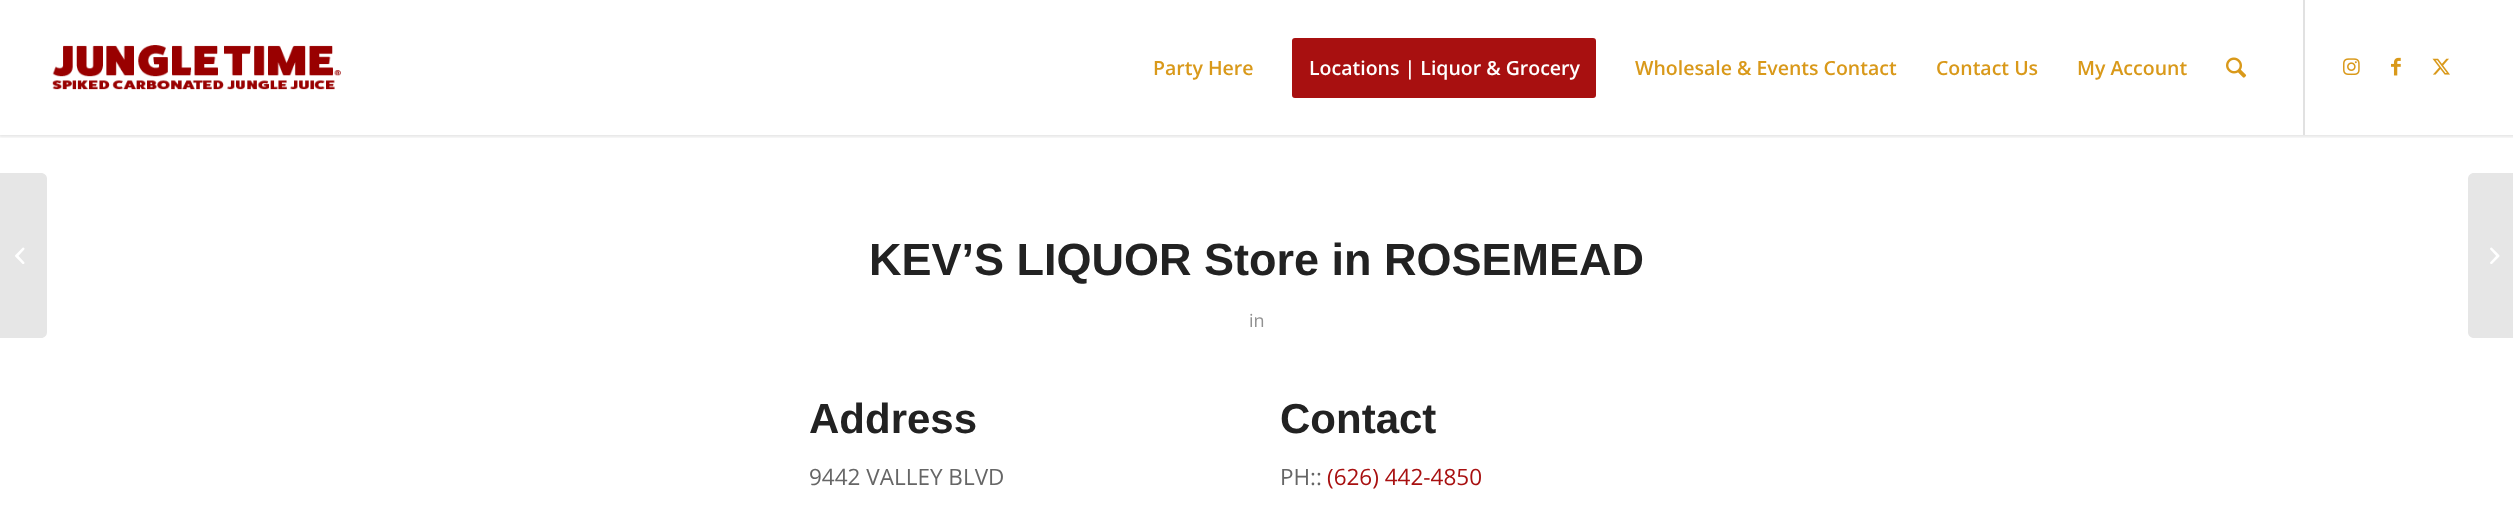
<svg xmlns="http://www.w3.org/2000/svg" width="2513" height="510">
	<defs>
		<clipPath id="clip1"><rect x="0" y="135" width="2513" height="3" /></clipPath>
	</defs>
	<rect width="100%" height="100%" fill="#FFFFFF" />
	<g clip-path="url(#clip1)">
		<rect x="-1" y="-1" width="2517" height="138" fill="#000000" fill-opacity="0.1" filter="blur(1.5px)" />
	</g>
	<image x="52" y="45" width="289" height="45" href="assets/img1.png" />
	<rect x="2303" y="0" width="2" height="135" fill="#E1E1E1" />
	<text x="1153" y="75" font-family="Open Sans" font-size="19.5" font-weight="600" fill="#D9991A">Party Here</text>
	<rect x="1293.5" y="39.5" width="301" height="57" rx="1.5" fill="#A81010" stroke="#A81010" stroke-width="3" />
	<text x="1309" y="75" font-family="Open Sans" font-size="19.5" font-weight="600" fill="#FFFFFF">Locations | Liquor &amp; Grocery</text>
	<g font-family="Open Sans" font-size="19.5" font-weight="600" fill="#D9991A">
		<text x="1635" y="75">Wholesale &amp; Events Contact</text>
		<text x="1936" y="75">Contact Us</text>
		<text x="2077" y="75">My Account</text>
	</g>
	<image x="2226" y="57" width="21" height="21" href="assets/img2.png" />
	<image x="2343" y="58" width="17" height="18" href="assets/img3.png" />
	<image x="2391" y="57" width="10" height="19" href="assets/img4.png" />
	<image x="2432" y="58" width="18" height="17" href="assets/img5.png" />
	<path d="M0 173H41C44.5 173 47 175.5 47 179V332C47 335.5 44.5 338 41 338H0Z" fill="#E6E6E6" />
	<image x="15" y="247" width="10" height="17" href="assets/img6.png" />
	<text x="869" y="275" font-family="Liberation Sans" font-size="45" font-weight="700" fill="#222222">KEV’S LIQUOR Store in ROSEMEAD</text>
	<text x="1249" y="327" font-family="Open Sans" font-size="18" fill="#919191">in</text>
	<text x="809" y="433" font-family="Liberation Sans" font-size="42" font-weight="700" fill="#222222">Address</text>
	<text x="809" y="485" font-family="Open Sans" font-size="22.5" fill="#666666">9442 VALLEY BLVD</text>
	<text x="1280" y="433" font-family="Liberation Sans" font-size="42" font-weight="700" fill="#222222">Contact</text>
	<text x="1280" y="485" font-family="Open Sans" font-size="22.5" fill="#666666">PH::</text>
	<text x="1327" y="485" font-family="Open Sans" font-size="22.5" fill="#A81010">(626) 442-4850</text>
	<path d="M2474 173H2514V338H2474C2470.5 338 2468 335.5 2468 332V179C2468 175.5 2470.5 173 2474 173Z" fill="#E6E6E6" />
	<image x="2490" y="247" width="10" height="17" href="assets/img7.png" />
</svg>
